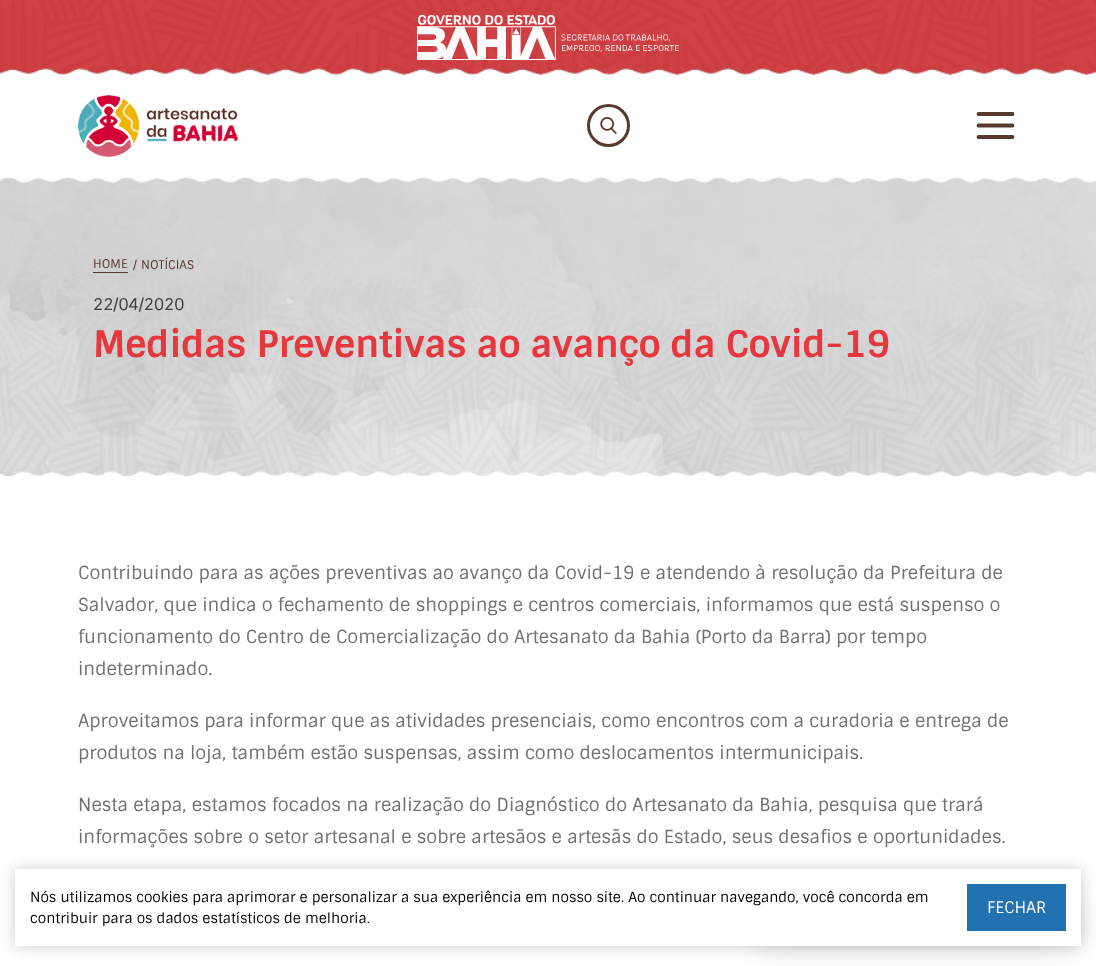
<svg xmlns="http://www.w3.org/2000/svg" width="1096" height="966">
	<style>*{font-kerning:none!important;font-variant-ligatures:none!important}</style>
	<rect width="100%" height="100%" fill="#FFFFFF" />
	<image x="0" y="0" width="1096" height="75" href="assets/img1.png" />
	<image x="417" y="15" width="262" height="45" href="assets/img2.png" />
	<image x="78" y="95" width="160" height="62" href="assets/img3.png" />
	<circle cx="608.5" cy="125.5" r="20" fill="none" stroke="#58392E" stroke-width="3" />
	<image x="600" y="117" width="17" height="17" href="assets/img4.png" />
	<path d="M978.5 125.5H1012.5M978.5 114H1012.5M978.5 137H1012.5" fill="none" stroke="#58392E" stroke-width="3.8" stroke-linecap="round" stroke-linejoin="round" />
	<image x="0" y="177" width="1096" height="300" href="assets/img5.png" />
	<rect x="93" y="272" width="35" height="1" fill="#58392E" />
	<g font-family="Sintony" font-size="12" fill="#58392E">
		<text x="93" y="268">HOME</text>
		<text x="133" y="269">/</text>
		<text x="141" y="269">NOTÍCIAS</text>
	</g>
	<text x="93" y="310" font-family="Sintony" font-size="16" fill="#3C3C3C">22/04/2020</text>
	<text x="93" y="357" font-family="Sintony" font-size="36.8" font-weight="700" fill="#E5373D">Medidas Preventivas ao avanço da Covid-19</text>
	<g font-family="Sintony" font-size="18" fill="#707070">
		<text x="78" y="579">Contribuindo para as ações preventivas ao avanço da Covid-19 e atendendo à resolução da Prefeitura de</text>
		<text x="78" y="611">Salvador, que indica o fechamento de shoppings e centros comerciais, informamos que está suspenso o</text>
		<text x="78" y="643">funcionamento do Centro de Comercialização do Artesanato da Bahia (Porto da Barra) por tempo</text>
		<text x="78" y="675">indeterminado.</text>
		<text x="78" y="727">Aproveitamos para informar que as atividades presenciais, como encontros com a curadoria e entrega de</text>
		<text x="78" y="759">produtos na loja, também estão suspensas, assim como deslocamentos intermunicipais.</text>
		<text x="78" y="811">Nesta etapa, estamos focados na realização do Diagnóstico do Artesanato da Bahia, pesquisa que trará</text>
		<text x="78" y="843">informações sobre o setor artesanal e sobre artesãos e artesãs do Estado, seus desafios e oportunidades.</text>
	</g>
	<rect x="753" y="904" width="323" height="40" rx="20" fill="#000000" fill-opacity="0.16" filter="blur(16px)" />
	<rect x="15" y="869" width="1066" height="77" fill="#000000" fill-opacity="0.2" filter="blur(8px)" />
	<rect x="15" y="869" width="1066" height="77" fill="#FFFFFF" />
	<g font-family="Sintony" font-size="14" fill="#000000">
		<text x="30" y="902">Nós utilizamos cookies para aprimorar e personalizar a sua experiência em nosso site. Ao continuar navegando, você concorda em</text>
		<text x="30" y="923">contribuir para os dados estatísticos de melhoria.</text>
	</g>
	<rect x="967" y="884" width="99" height="47" fill="#2271B1" />
	<text x="987" y="913" font-family="Sintony" font-size="16" fill="#FFFFFF">FECHAR</text>
</svg>
